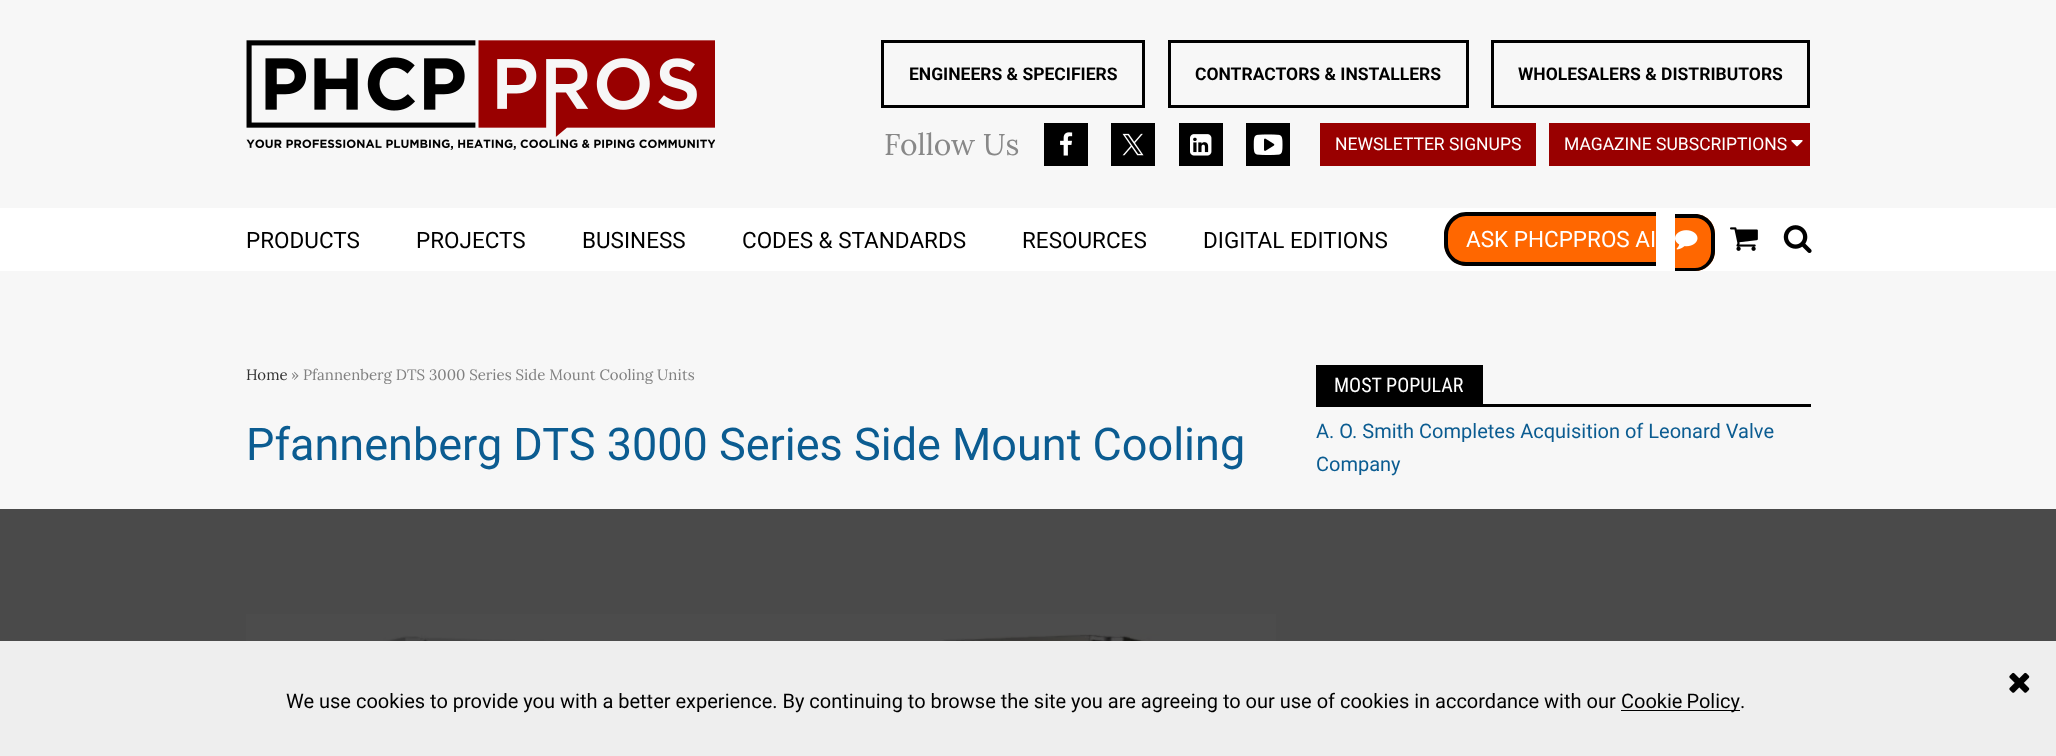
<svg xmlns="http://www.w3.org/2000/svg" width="2056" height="756">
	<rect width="100%" height="100%" fill="#F7F7F7" />
	<image x="246" y="40" width="469" height="110" href="assets/img1.png" />
	<rect x="882.5" y="41.5" width="261" height="65" fill="none" stroke="#000000" stroke-width="3" />
	<text x="909" y="80" font-family="Roboto" font-size="17.5" font-weight="700" fill="#000000">ENGINEERS &amp; SPECIFIERS</text>
	<rect x="1169.5" y="41.5" width="298" height="65" fill="none" stroke="#000000" stroke-width="3" />
	<text x="1195" y="80" font-family="Roboto" font-size="17.5" font-weight="700" fill="#000000">CONTRACTORS &amp; INSTALLERS</text>
	<rect x="1492.5" y="41.5" width="316" height="65" fill="none" stroke="#000000" stroke-width="3" />
	<text x="1518" y="80" font-family="Roboto" font-size="17.5" font-weight="700" fill="#000000">WHOLESALERS &amp; DISTRIBUTORS</text>
	<text x="884" y="155" font-family="Lora" font-size="30" fill="#888888">Follow Us</text>
	<rect x="1044" y="123" width="44" height="43" fill="#000000" />
	<image x="1060" y="132" width="13" height="24" href="assets/img2.png" />
	<rect x="1111" y="123" width="44" height="43" fill="#000000" />
	<image x="1122" y="133" width="22" height="23" href="assets/img3.png" />
	<rect x="1179" y="123" width="44" height="43" fill="#000000" />
	<image x="1190" y="134" width="22" height="22" href="assets/img4.png" />
	<rect x="1246" y="123" width="44" height="43" fill="#000000" />
	<image x="1253" y="134" width="30" height="21" href="assets/img5.png" />
	<rect x="1320" y="123" width="216" height="43" fill="#990000" />
	<text x="1335" y="150" font-family="Roboto" font-size="17.5" fill="#FFFFFF">NEWSLETTER SIGNUPS</text>
	<rect x="1549" y="123" width="261" height="43" fill="#990000" />
	<text x="1564" y="150" font-family="Roboto" font-size="17.5" fill="#FFFFFF">MAGAZINE SUBSCRIPTIONS</text>
	<image x="1791" y="140" width="12" height="7" href="assets/img6.png" />
	<rect x="0" y="208" width="2056" height="63" fill="#FFFFFF" />
	<g font-family="Roboto" font-size="22.5" fill="#000000">
		<text x="246" y="248">PRODUCTS</text>
		<text x="416" y="248">PROJECTS</text>
		<text x="582" y="248">BUSINESS</text>
		<text x="742" y="248">CODES &amp; STANDARDS</text>
		<text x="1022" y="248">RESOURCES</text>
		<text x="1203" y="248">DIGITAL EDITIONS</text>
	</g>
	<path d="M1467 213H1656V266H1467C1454.5 266 1444 255.5 1444 243V236C1444 223.5 1454.5 213 1467 213Z" fill="#FF6700" />
	<path d="M1466 212H1656V266H1466C1454 266 1444 256 1444 244V235C1444 223 1454 212 1466 212ZM1466 216H1656V262H1466C1456 262 1448 254 1448 244V235C1448 225 1456 216 1466 216Z" fill="#000000" fill-rule="evenodd" />
	<path d="M1675 214H1695C1706 214 1715 223 1715 234V251C1715 262 1706 271 1695 271H1675Z" fill="#FF6700" />
	<path d="M1675 214H1695C1706 214 1715 223 1715 234V251C1715 262 1706 271 1695 271H1675ZM1675 218H1695C1704 218 1711 225 1711 234V251C1711 260 1704 268 1695 268H1675Z" fill="#000000" fill-rule="evenodd" />
	<text x="1466" y="247" font-family="Roboto" font-size="22.5" fill="#FFFFFF">ASK PHCPPROS AI</text>
	<image x="1675" y="230" width="23" height="20" href="assets/img7.png" />
	<image x="1730" y="227" width="28" height="24" href="assets/img8.png" />
	<image x="1783" y="225" width="29" height="28" href="assets/img9.png" />
	<text x="246" y="380" font-family="Lora" font-size="15" fill="#333333">Home</text>
	<text x="291" y="380" font-family="Lora" font-size="15" fill="#808080">» Pfannenberg DTS 3000 Series Side Mount Cooling Units</text>
	<text x="246" y="460" font-family="Roboto" font-size="45" fill="#0B5C91">Pfannenberg DTS 3000 Series Side Mount Cooling</text>
	<rect x="246" y="614" width="1030" height="27" fill="#FDFDFD" />
	<image x="362" y="634" width="805" height="7" href="assets/img10.png" />
	<rect x="1316" y="365" width="167" height="39" fill="#000000" />
	<text x="1334" y="392" font-family="Roboto Condensed" font-size="20" fill="#FFFFFF">MOST POPULAR</text>
	<rect x="1316" y="404" width="495" height="3" fill="#000000" />
	<g font-family="Roboto" font-size="20" fill="#0B5C91">
		<text x="1316" y="438">A. O. Smith Completes Acquisition of Leonard Valve</text>
		<text x="1316" y="471">Company</text>
	</g>
	<rect x="0" y="509" width="2056" height="132" fill="#000000" fill-opacity="0.7" />
	<rect x="0" y="641" width="2056" height="115" fill="#EEEEEE" />
	<image x="2009" y="672" width="21" height="21" href="assets/img11.png" />
	<text x="286" y="708" font-family="Roboto" font-size="20" fill="#000000">We use cookies to provide you with a better experience. By continuing to browse the site you are agreeing to our use of cookies in accordance with our</text>
	<rect x="1621" y="710" width="119" height="1" fill="#000000" />
	<g font-family="Roboto" font-size="20" fill="#000000">
		<text x="1621" y="708" word-spacing="-1">Cookie Policy</text>
		<text x="1740" y="708">.</text>
	</g>
</svg>
